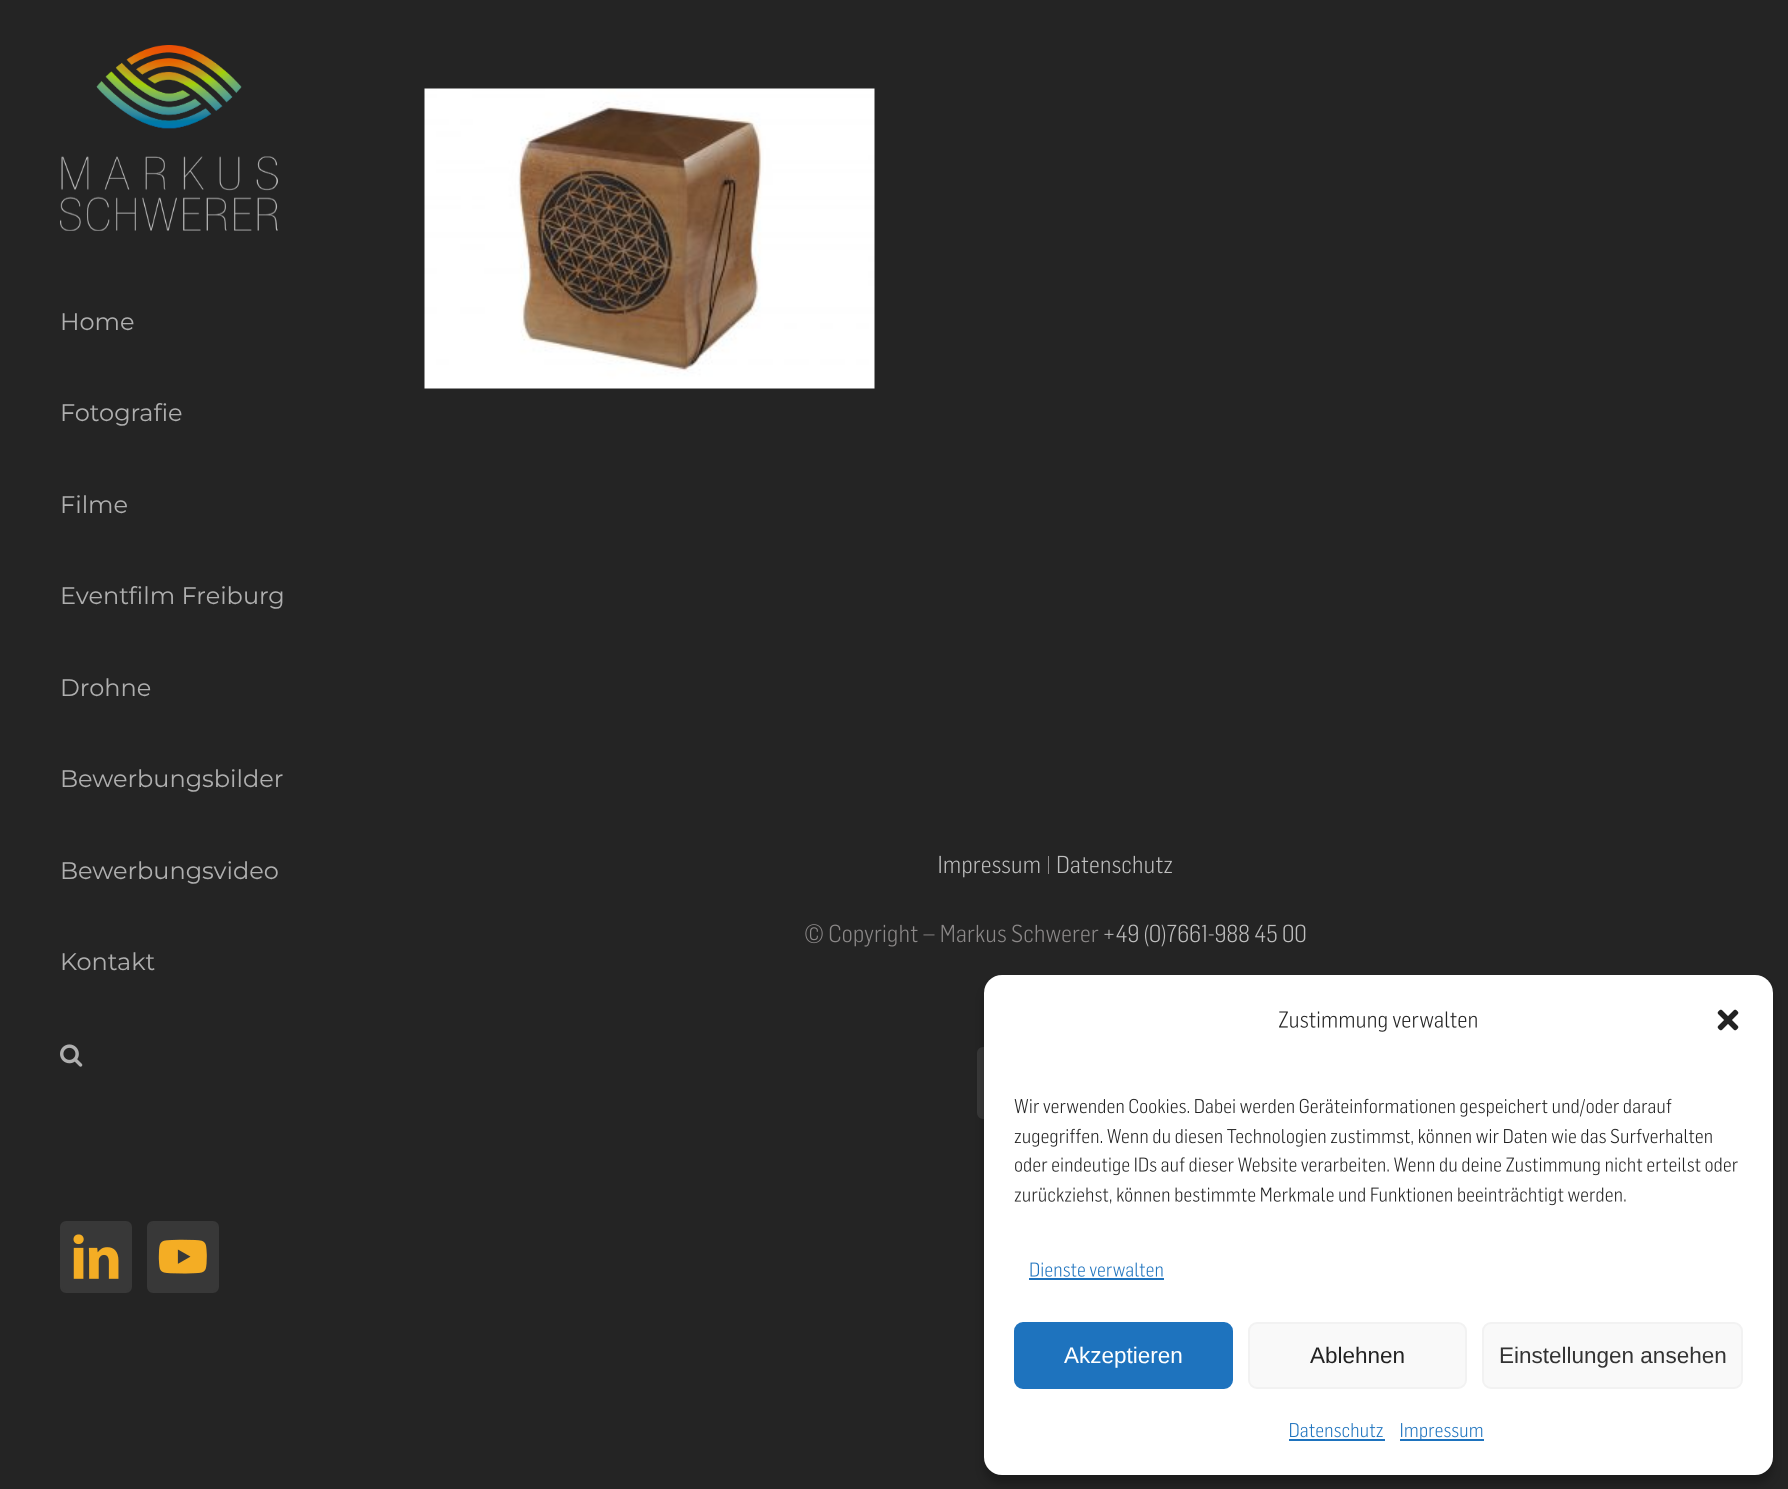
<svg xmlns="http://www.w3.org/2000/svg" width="1788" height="1489">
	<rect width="100%" height="100%" fill="#242424" />
	<image x="424" y="88" width="451" height="301" href="assets/img1.png" />
	<image x="60" y="45" width="218" height="186" href="assets/img2.png" />
	<g font-family="Montserrat" font-size="24" font-weight="100" fill="#AFAFAF">
		<text x="60" y="330">Home</text>
		<text x="60" y="421">Fotografie</text>
		<text x="60" y="513">Filme</text>
		<text x="60" y="604">Eventfilm Freiburg</text>
		<text x="60" y="696">Drohne</text>
		<text x="60" y="787">Bewerbungsbilder</text>
		<text x="60" y="879">Bewerbungsvideo</text>
		<text x="60" y="970">Kontakt</text>
	</g>
	<image x="60" y="1044" width="23" height="23" href="assets/img3.png" />
	<rect x="61" y="1222" width="70" height="70" rx="5" fill="#383838" stroke="#383838" stroke-width="2" />
	<image x="73" y="1234" width="46" height="45" href="assets/img4.png" />
	<rect x="148" y="1222" width="70" height="70" rx="5" fill="#383838" stroke="#383838" stroke-width="2" />
	<image x="158" y="1239" width="49" height="35" href="assets/img5.png" />
	<image x="939" y="855" width="101" height="23" href="assets/img6.png" />
	<rect x="1048" y="856" width="1" height="18" fill="#8C8989" />
	<image x="1057" y="855" width="115" height="19" href="assets/img7.png" />
	<image x="805" y="924" width="294" height="23" href="assets/img8.png" />
	<image x="1104" y="924" width="202" height="23" href="assets/img9.png" />
	<rect x="978" y="1048" width="70" height="70" rx="5" fill="#383838" stroke="#383838" stroke-width="2" />
	<rect x="984" y="984" width="789" height="500" rx="18" fill="#000000" fill-opacity="0.23" filter="blur(4.5px)" />
	<rect x="984" y="975" width="789" height="500" rx="18" fill="#FFFFFF" />
	<image x="1279" y="1011" width="198" height="21" href="assets/img10.png" />
	<image x="1717" y="1009" width="22" height="22" href="assets/img11.png" />
	<image x="1014" y="1098" width="658" height="19" href="assets/img12.png" />
	<image x="1014" y="1128" width="698" height="19" href="assets/img13.png" />
	<image x="1015" y="1157" width="723" height="19" href="assets/img14.png" />
	<image x="1014" y="1187" width="612" height="19" href="assets/img15.png" />
	<image x="1030" y="1262" width="133" height="15" href="assets/img16.png" />
	<rect x="1029" y="1278" width="135" height="2" fill="#1E73BE" />
	<rect x="1015" y="1323" width="217" height="65" rx="8" fill="#1E73BE" stroke="#1E73BE" stroke-width="2" />
	<text x="1064" y="1363" font-family="Liberation Sans" font-size="22.5" fill="#FFFFFF">Akzeptieren</text>
	<rect x="1249" y="1323" width="217" height="65" rx="8" fill="#F9F9F9" stroke="#F2F2F2" stroke-width="2" />
	<text x="1310" y="1363" font-family="Liberation Sans" font-size="22.5" fill="#222222">Ablehnen</text>
	<rect x="1483" y="1323" width="259" height="65" rx="8" fill="#F9F9F9" stroke="#F2F2F2" stroke-width="2" />
	<text x="1499" y="1363" font-family="Liberation Sans" font-size="22.5" fill="#333333">Einstellungen ansehen</text>
	<image x="1290" y="1423" width="93" height="15" href="assets/img17.png" />
	<rect x="1289" y="1439" width="96" height="2" fill="#1E73BE" />
	<image x="1401" y="1423" width="82" height="16" href="assets/img18.png" />
	<rect x="1400" y="1439" width="84" height="2" fill="#1E73BE" />
</svg>
